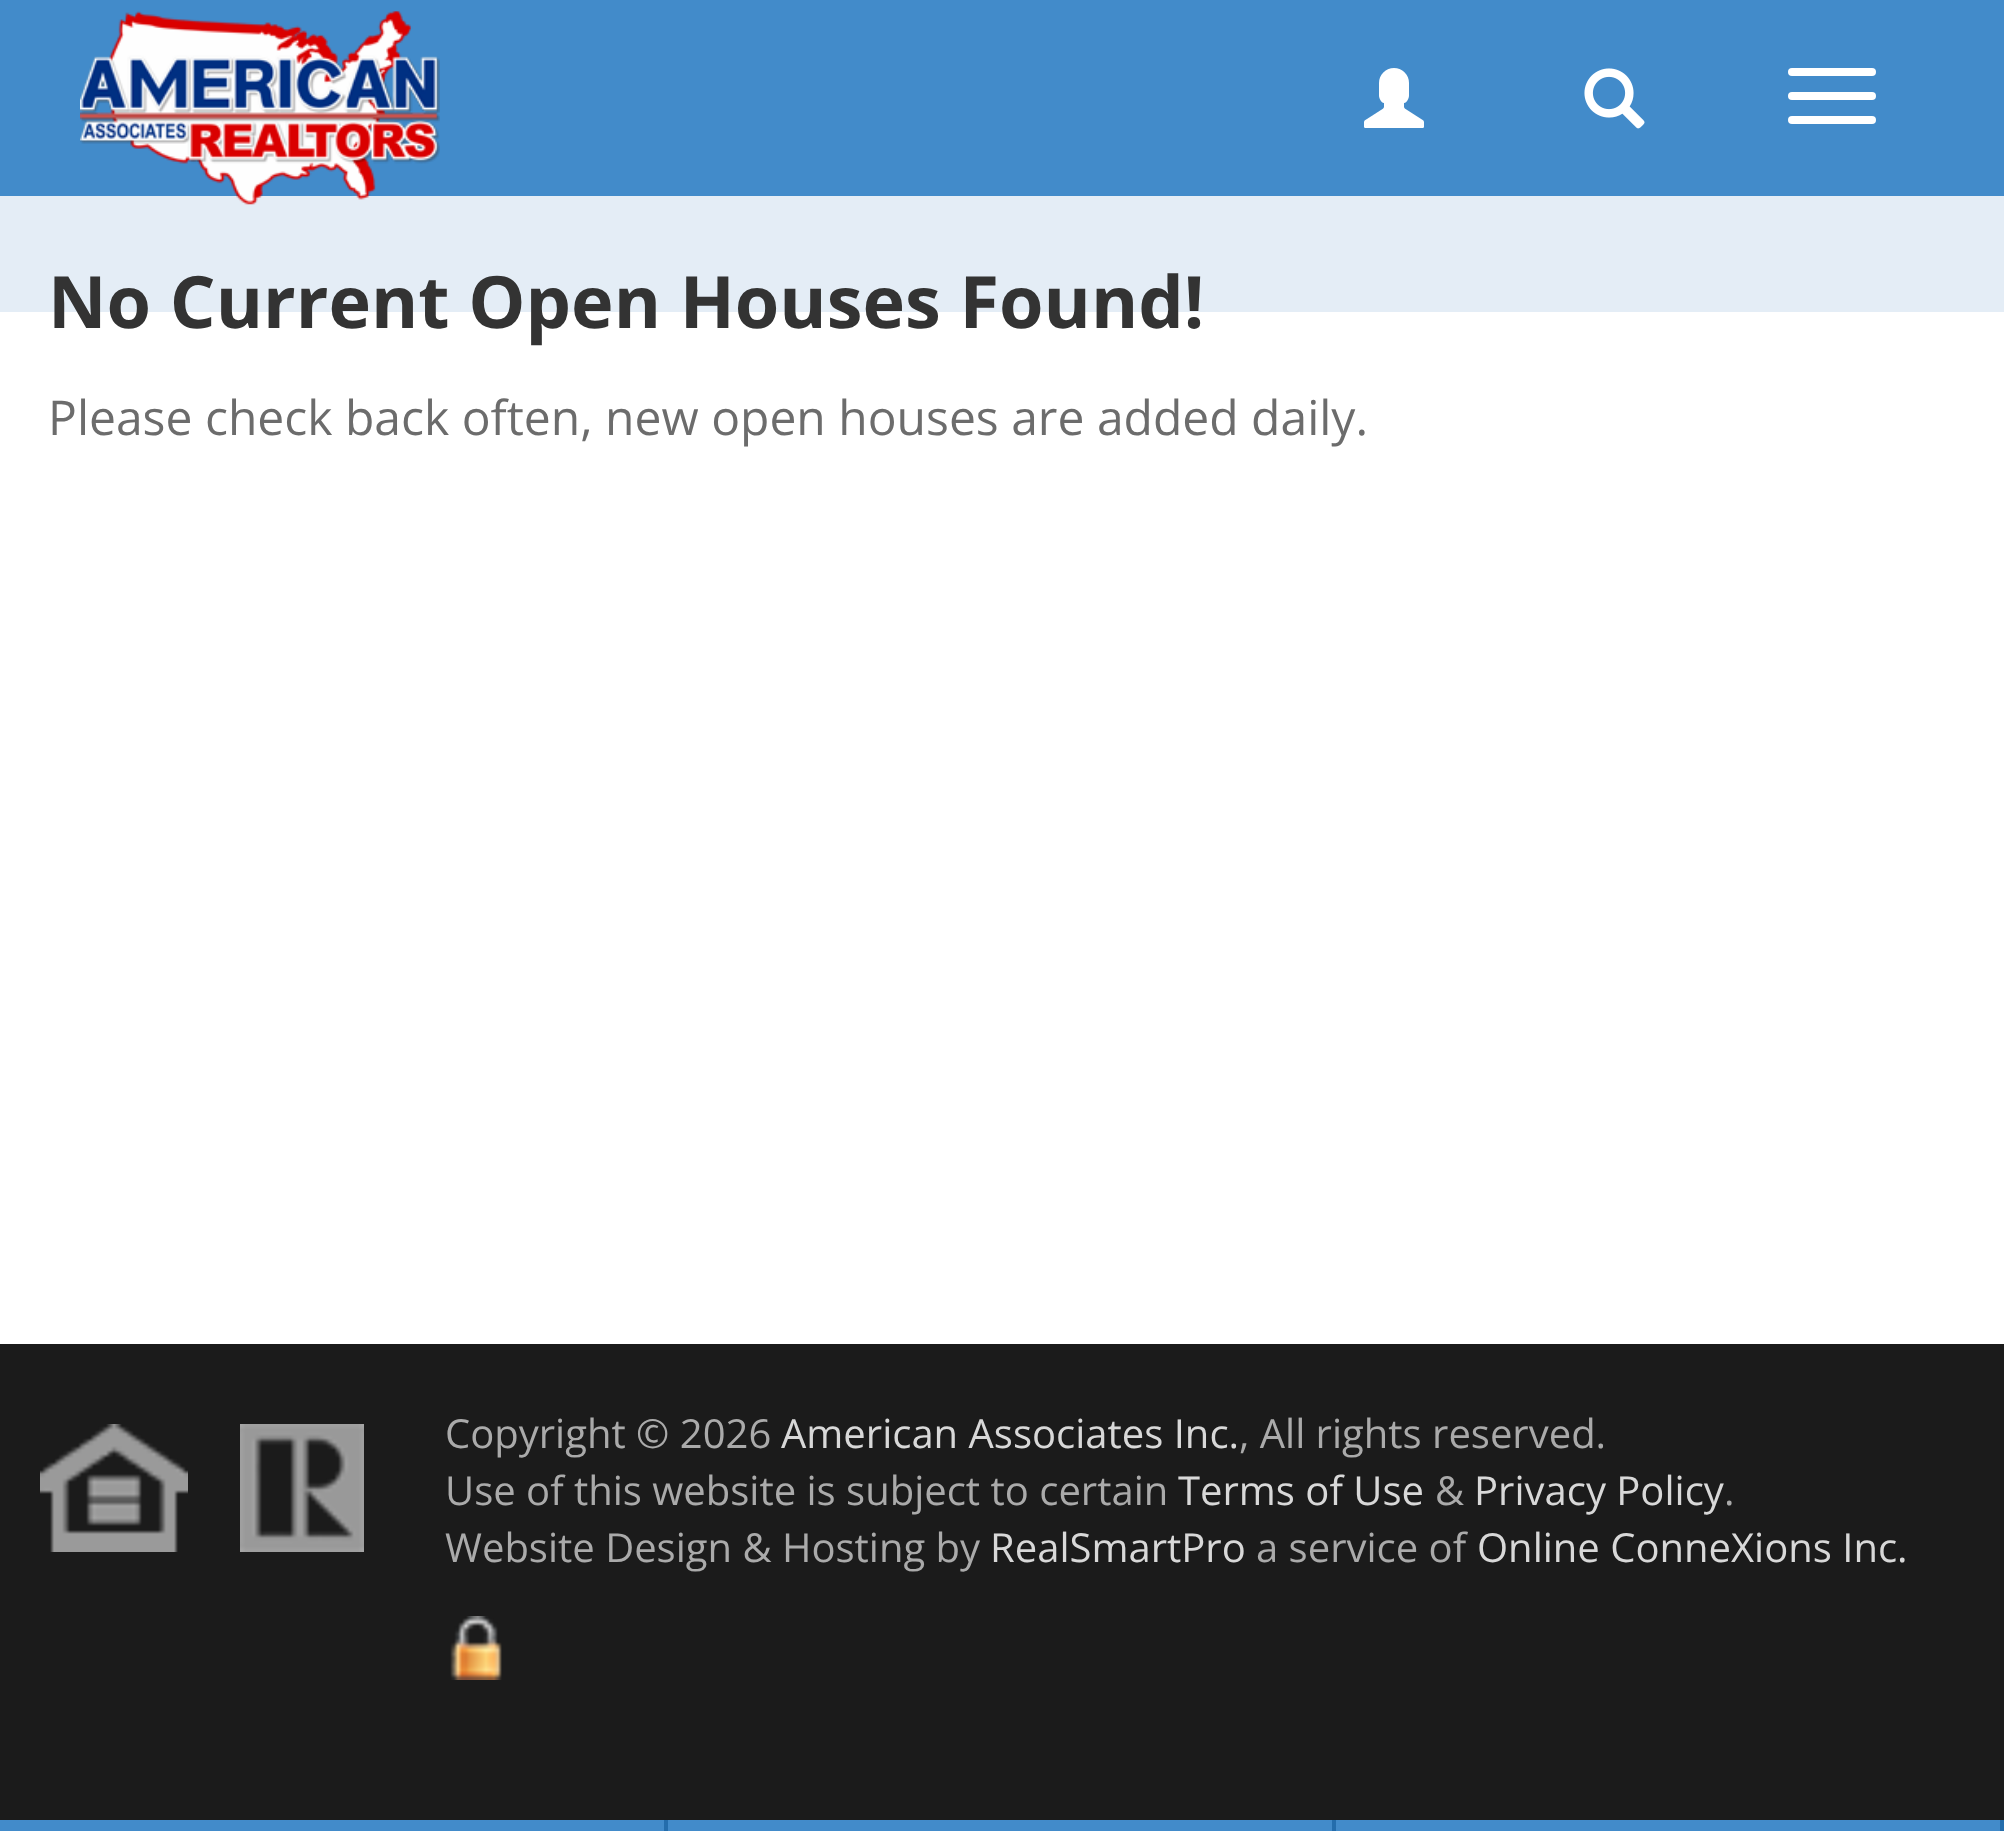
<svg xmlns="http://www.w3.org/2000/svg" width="2004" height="1831">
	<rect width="100%" height="100%" fill="#FFFFFF" />
	<rect x="0" y="0" width="2004" height="196" fill="#428BCA" />
	<rect x="0" y="196" width="2004" height="116" fill="#E4EDF6" />
	<image x="80" y="11" width="360" height="194" href="assets/img1.png" />
	<image x="1364" y="68" width="60" height="60" href="assets/img2.png" />
	<image x="1584" y="68" width="61" height="61" href="assets/img3.png" />
	<rect x="1788" y="68" width="88" height="8" rx="4" fill="#FFFFFF" />
	<rect x="1788" y="92" width="88" height="8" rx="4" fill="#FFFFFF" />
	<rect x="1788" y="116" width="88" height="8" rx="4" fill="#FFFFFF" />
	<text x="48" y="328" font-family="Open Sans" font-size="72" font-weight="700" fill="#333333">No Current Open Houses Found!</text>
	<text x="48" y="435" font-family="Open Sans" font-size="48" fill="#6C6C6C">Please check back often, new open houses are added daily.</text>
	<rect x="0" y="1344" width="2004" height="476" fill="#1B1B1B" />
	<image x="40" y="1424" width="148" height="128" href="assets/img4.png" />
	<image x="240" y="1424" width="124" height="128" href="assets/img5.png" />
	<text x="445" y="1448" font-family="Open Sans" font-size="40" fill="#AAAAAA">Copyright © 2026</text>
	<text x="781" y="1448" font-family="Open Sans" font-size="40" fill="#D8D8D8">American Associates Inc.</text>
	<g font-family="Open Sans" font-size="40" fill="#AAAAAA">
		<text x="1239" y="1448">, All rights reserved.</text>
		<text x="445" y="1505">Use of this website is subject to certain</text>
	</g>
	<text x="1178" y="1505" font-family="Open Sans" font-size="40" fill="#D8D8D8">Terms of Use</text>
	<text x="1435" y="1505" font-family="Open Sans" font-size="40" fill="#AAAAAA">&amp;</text>
	<text x="1474" y="1505" font-family="Open Sans" font-size="40" fill="#D8D8D8">Privacy Policy</text>
	<g font-family="Open Sans" font-size="40" fill="#AAAAAA">
		<text x="1724" y="1505">.</text>
		<text x="445" y="1562">Website Design &amp; Hosting by</text>
	</g>
	<text x="990" y="1562" font-family="Open Sans" font-size="40" fill="#D8D8D8">RealSmartPro</text>
	<text x="1256" y="1562" font-family="Open Sans" font-size="40" fill="#AAAAAA">a service of</text>
	<text x="1477" y="1562" font-family="Open Sans" font-size="40" fill="#D8D8D8">Online ConneXions Inc.</text>
	<image x="450" y="1616" width="52" height="64" href="assets/img6.png" />
	<rect x="0" y="1820" width="664" height="11" fill="#428BCA" />
	<rect x="664" y="1820" width="4" height="11" fill="#246DAC" />
	<rect x="668" y="1820" width="664" height="11" fill="#428BCA" />
	<rect x="1332" y="1820" width="4" height="11" fill="#246DAC" />
	<rect x="1336" y="1820" width="664" height="11" fill="#428BCA" />
	<rect x="2000" y="1820" width="4" height="11" fill="#246DAC" />
</svg>
